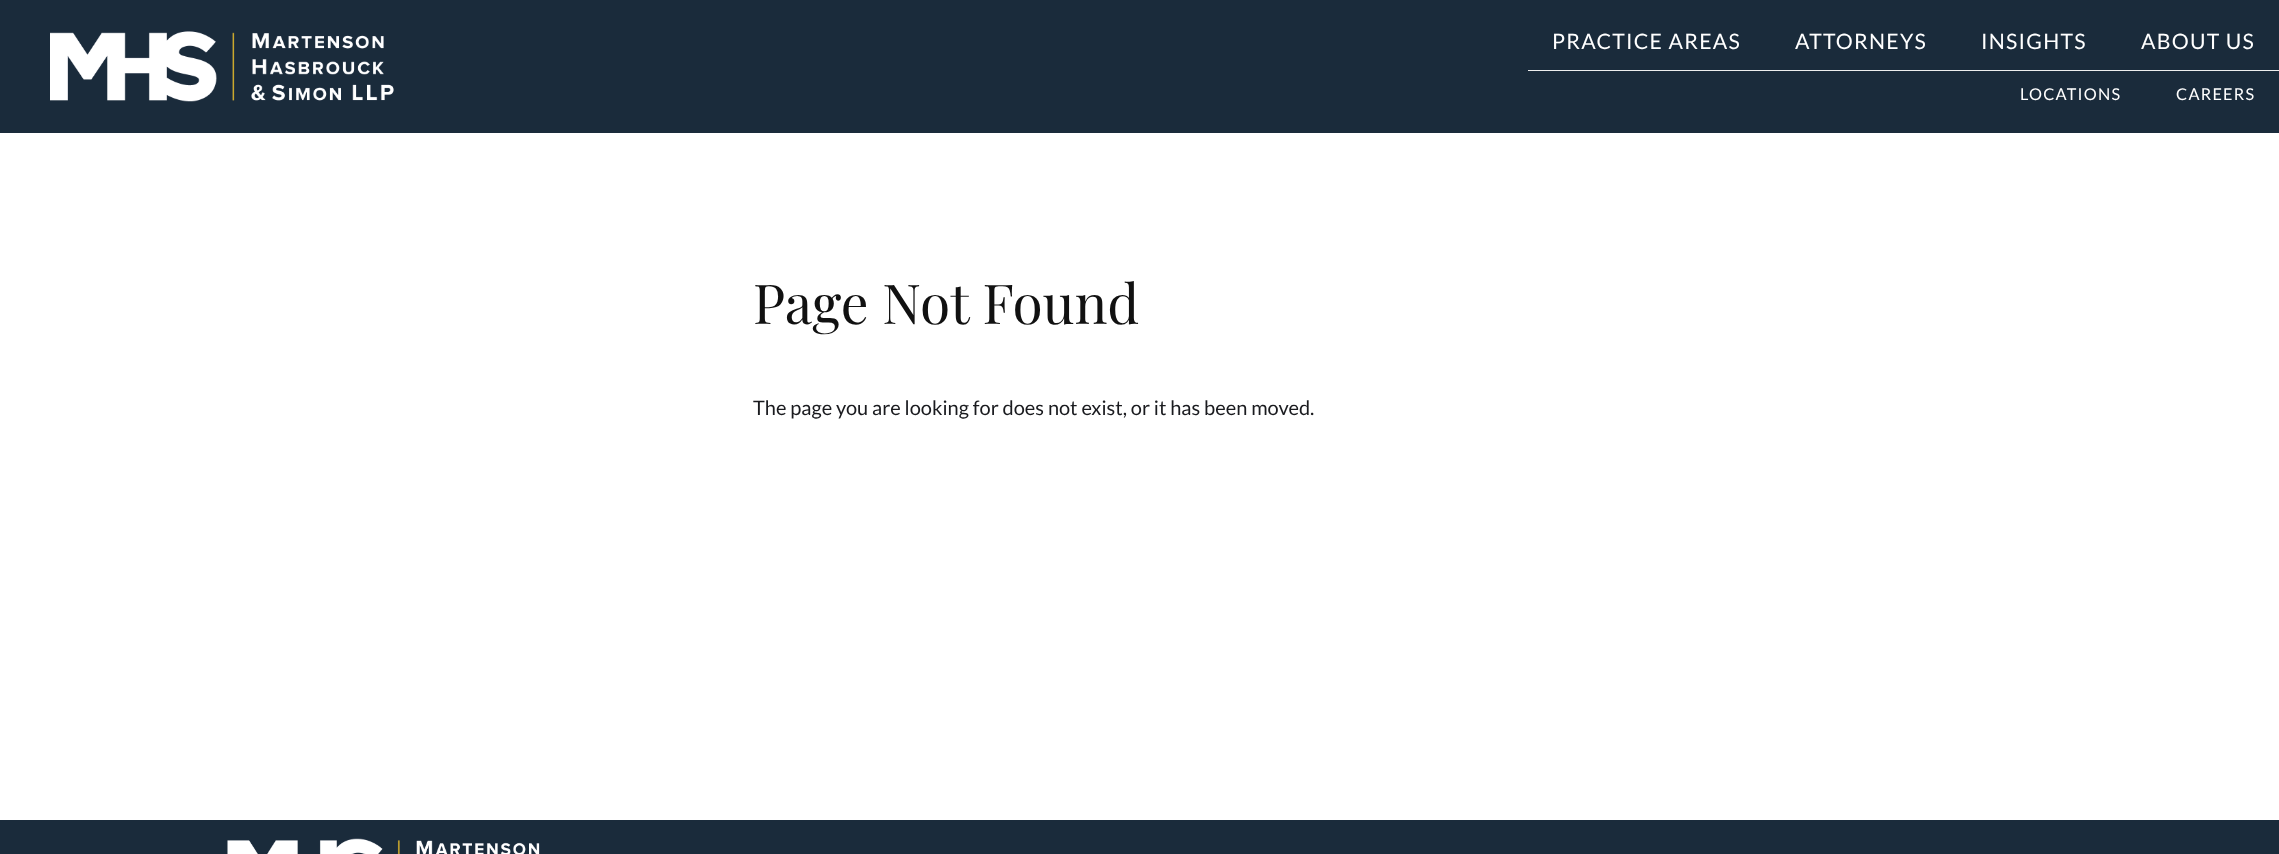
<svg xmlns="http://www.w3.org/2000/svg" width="2279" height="854">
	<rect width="100%" height="100%" fill="#FFFFFF" />
	<rect x="0" y="0" width="2279" height="133" fill="#1A2B3B" />
	<image x="50" y="31" width="344" height="71" href="assets/img1.png" />
	<g font-family="Lato" font-size="21.25" letter-spacing="1.25" fill="#FFFFFF">
		<text x="1552" y="49">PRACTICE AREAS</text>
		<text x="1795" y="49">ATTORNEYS</text>
		<text x="1981" y="49">INSIGHTS</text>
		<text x="2141" y="49">ABOUT US</text>
	</g>
	<rect x="1528" y="70" width="751" height="1" fill="#EEEEEE" />
	<g font-family="Lato" font-size="16.25" letter-spacing="1.25" fill="#FFFFFF">
		<text x="2020" y="100">LOCATIONS</text>
		<text x="2176" y="100">CAREERS</text>
	</g>
	<text x="753" y="324" font-family="Playfair Display" font-size="55" fill="#111111">Page Not Found</text>
	<text x="753" y="415" font-family="Lato" font-size="20" fill="#1A1B1F">The page you are looking for does not exist, or it has been moved.</text>
	<rect x="0" y="820" width="2279" height="34" fill="#1A2B3B" />
	<image x="227" y="838" width="313" height="16" href="assets/img2.png" />
</svg>
